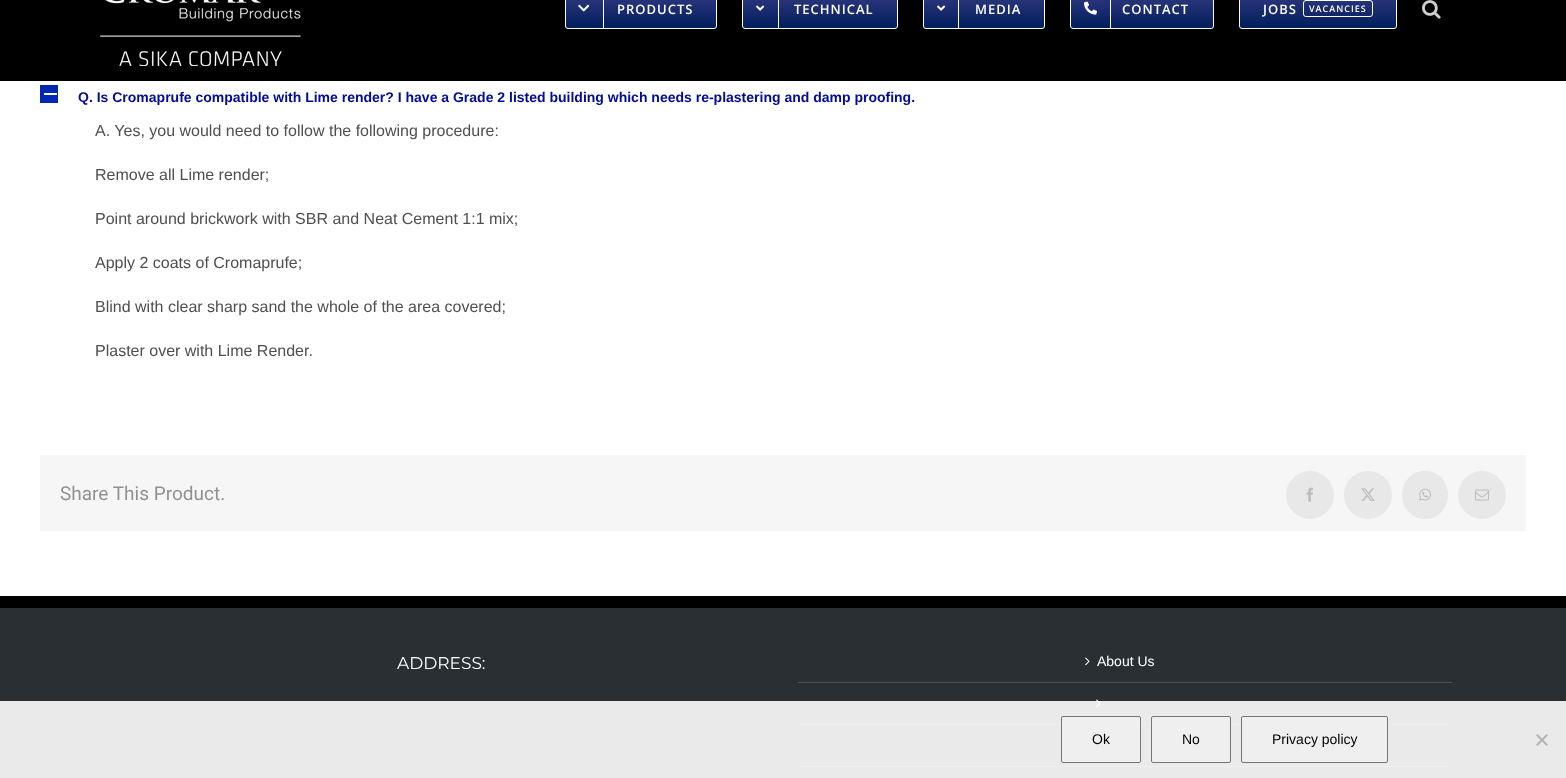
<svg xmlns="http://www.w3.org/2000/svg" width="1566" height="778">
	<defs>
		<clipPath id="clip1"><rect x="565" y="-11" width="152" height="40" rx="3" /></clipPath>
		<linearGradient id="g1" gradientUnits="userSpaceOnUse" x1="641" y1="-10" x2="641" y2="28"><stop offset="0" stop-color="#363B84" /><stop offset="1" stop-color="#001E5B" /></linearGradient>
		<clipPath id="clip2"><rect x="742" y="-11" width="156" height="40" rx="3" /></clipPath>
		<linearGradient id="g2" gradientUnits="userSpaceOnUse" x1="820" y1="-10" x2="820" y2="28"><stop offset="0" stop-color="#363B84" /><stop offset="1" stop-color="#001E5B" /></linearGradient>
		<clipPath id="clip3"><rect x="923" y="-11" width="122" height="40" rx="3" /></clipPath>
		<linearGradient id="g3" gradientUnits="userSpaceOnUse" x1="984" y1="-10" x2="984" y2="28"><stop offset="0" stop-color="#363B84" /><stop offset="1" stop-color="#001E5B" /></linearGradient>
		<clipPath id="clip4"><rect x="1070" y="-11" width="144" height="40" rx="3" /></clipPath>
		<linearGradient id="g4" gradientUnits="userSpaceOnUse" x1="1142" y1="-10" x2="1142" y2="28"><stop offset="0" stop-color="#363B84" /><stop offset="1" stop-color="#001E5B" /></linearGradient>
		<clipPath id="clip5"><rect x="1239" y="-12" width="158" height="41" rx="3" /></clipPath>
		<linearGradient id="g5" gradientUnits="userSpaceOnUse" x1="1318" y1="-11" x2="1318" y2="28"><stop offset="0" stop-color="#363B84" /><stop offset="1" stop-color="#001E5B" /></linearGradient>
	</defs>
	<rect width="100%" height="100%" fill="#FFFFFF" />
	<rect x="0" y="0" width="1566" height="81" fill="#000000" />
	<image x="100" y="0" width="201" height="66" href="assets/img1.png" />
	<g clip-path="url(#clip1)">
		<rect x="565" y="0" width="152" height="28" fill="url(#g1)" />
	</g>
	<rect x="565.5" y="-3.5" width="151" height="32" rx="2.5" fill="none" stroke="#FCFCFC" />
	<rect x="603" y="0" width="1" height="28" fill="#FFFFFF" />
	<image x="578" y="4" width="12" height="8" href="assets/img2.png" />
	<text x="617" y="14" font-family="Open Sans" font-size="13" font-weight="600" letter-spacing="1" fill="#FFFFFF">PRODUCTS</text>
	<g clip-path="url(#clip2)">
		<rect x="742" y="0" width="156" height="28" fill="url(#g2)" />
	</g>
	<rect x="742.5" y="-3.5" width="155" height="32" rx="2.5" fill="none" stroke="#FCFCFC" />
	<rect x="778" y="0" width="1" height="28" fill="#FFFFFF" />
	<image x="756" y="5" width="9" height="6" href="assets/img3.png" />
	<text x="794" y="14" font-family="Open Sans" font-size="13" font-weight="600" letter-spacing="1" fill="#FFFFFF">TECHNICAL</text>
	<g clip-path="url(#clip3)">
		<rect x="923" y="0" width="122" height="28" fill="url(#g3)" />
	</g>
	<rect x="923.5" y="-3.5" width="121" height="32" rx="2.5" fill="none" stroke="#FCFCFC" />
	<rect x="958" y="0" width="1" height="28" fill="#FFFFFF" />
	<image x="937" y="5" width="9" height="6" href="assets/img3.png" />
	<text x="975" y="14" font-family="Open Sans" font-size="13" font-weight="600" letter-spacing="1" fill="#FFFFFF">MEDIA</text>
	<g clip-path="url(#clip4)">
		<rect x="1070" y="0" width="144" height="28" fill="url(#g4)" />
	</g>
	<rect x="1070.5" y="-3.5" width="143" height="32" rx="2.5" fill="none" stroke="#FCFCFC" />
	<rect x="1110" y="0" width="1" height="28" fill="#FFFFFF" />
	<image x="1084" y="1" width="13" height="14" href="assets/img4.png" />
	<text x="1122" y="14" font-family="Open Sans" font-size="13" font-weight="600" letter-spacing="1" fill="#FFFFFF">CONTACT</text>
	<g clip-path="url(#clip5)">
		<rect x="1239" y="0" width="158" height="28" fill="url(#g5)" />
	</g>
	<rect x="1239.5" y="-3.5" width="157" height="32" rx="2.5" fill="none" stroke="#FCFCFC" />
	<text x="1263" y="14" font-family="Open Sans" font-size="13" font-weight="600" letter-spacing="1" fill="#FFFFFF">JOBS</text>
	<rect x="1303.5" y="0.5" width="69" height="16" rx="2.5" fill="none" stroke="#FFFFFF" />
	<text x="1309" y="12" font-family="Open Sans" font-size="9" font-weight="600" letter-spacing="1" fill="#FFFFFF">VACANCIES</text>
	<image x="1422" y="0" width="19" height="19" href="assets/img5.png" />
	<rect x="40" y="85" width="18" height="18" fill="#0028B7" />
	<rect x="44" y="93" width="13" height="2" fill="#FFFFFF" />
	<text x="78" y="102" font-family="Liberation Sans" font-size="14" font-weight="700" fill="#000B98">Q. Is Cromaprufe compatible with Lime render? I have a Grade 2 listed building which needs re-plastering and damp proofing.</text>
	<g font-family="Liberation Sans" font-size="16" fill="#504F4F">
		<text x="95" y="136">A. Yes, you would need to follow the following procedure:</text>
		<text x="95" y="180">Remove all Lime render;</text>
		<text x="95" y="224">Point around brickwork with SBR and Neat Cement 1:1 mix;</text>
		<text x="95" y="268">Apply 2 coats of Cromaprufe;</text>
		<text x="95" y="312">Blind with clear sharp sand the whole of the area covered;</text>
		<text x="95" y="356">Plaster over with Lime Render.</text>
	</g>
	<rect x="40" y="455" width="1486" height="76" fill="#F6F6F6" />
	<text x="60" y="500" font-family="Roboto" font-size="19" fill="#919191">Share This Product.</text>
	<circle cx="1310" cy="495" r="23.5" fill="#E8E8E8" stroke="#E8E8E8" />
	<image x="1306" y="487" width="7" height="15" href="assets/img6.png" />
	<circle cx="1368" cy="495" r="23.5" fill="#E8E8E8" stroke="#E8E8E8" />
	<image x="1361" y="488" width="14" height="13" href="assets/img7.png" />
	<ellipse cx="1425" cy="495" rx="23" ry="24" fill="#E8E8E8" />
	<path d="M1425 471.5C1454.5 471.5 1454.5 518.5 1425 518.5C1395.5 518.5 1395.5 471.5 1425 471.5Z" fill="none" stroke="#E8E8E8" />
	<image x="1419" y="488" width="12" height="13" href="assets/img8.png" />
	<circle cx="1482" cy="495" r="23.5" fill="#E8E8E8" stroke="#E8E8E8" />
	<image x="1475" y="489" width="14" height="12" href="assets/img9.png" />
	<rect x="0" y="608" width="1566" height="170" fill="#292F33" />
	<rect x="0" y="596" width="1566" height="12" fill="#000000" />
	<text x="397" y="669" font-family="Montserrat" font-size="17" font-weight="100" fill="#FFFFFF">ADDRESS:</text>
	<rect x="798" y="682" width="654" height="1" fill="#505152" />
	<image x="1085" y="657" width="5" height="9" href="assets/img10.png" />
	<text x="1097" y="666" font-family="Liberation Sans" font-size="14" fill="#FFFFFF">About Us</text>
	<rect x="798" y="724" width="654" height="1" fill="#505152" />
	<image x="1096" y="699" width="5" height="9" href="assets/img10.png" />
	<rect x="798" y="766" width="654" height="1" fill="#505152" />
	<rect x="0" y="701" width="1566" height="77" fill="#FFFFFF" fill-opacity="0.9" />
	<rect x="1061.5" y="716.5" width="79" height="46" rx="1.5" fill="#EFEFEF" stroke="#767676" />
	<text x="1092" y="744" font-family="Liberation Sans" font-size="14" fill="#000000">Ok</text>
	<rect x="1151.5" y="716.5" width="79" height="46" rx="1.5" fill="#EFEFEF" stroke="#767676" />
	<text x="1182" y="744" font-family="Liberation Sans" font-size="14" fill="#000000">No</text>
	<rect x="1241.5" y="716.5" width="146" height="46" rx="1.5" fill="#EFEFEF" stroke="#767676" />
	<text x="1272" y="744" font-family="Liberation Sans" font-size="14" fill="#000000">Privacy policy</text>
	<path d="M1546.5 734L1548 735.5L1537.5 746L1536 744.5Z" fill="#B5B5B5" />
	<path d="M1536 735.5L1537.5 734L1548 744.5L1546.5 746Z" fill="#B5B5B5" />
</svg>
